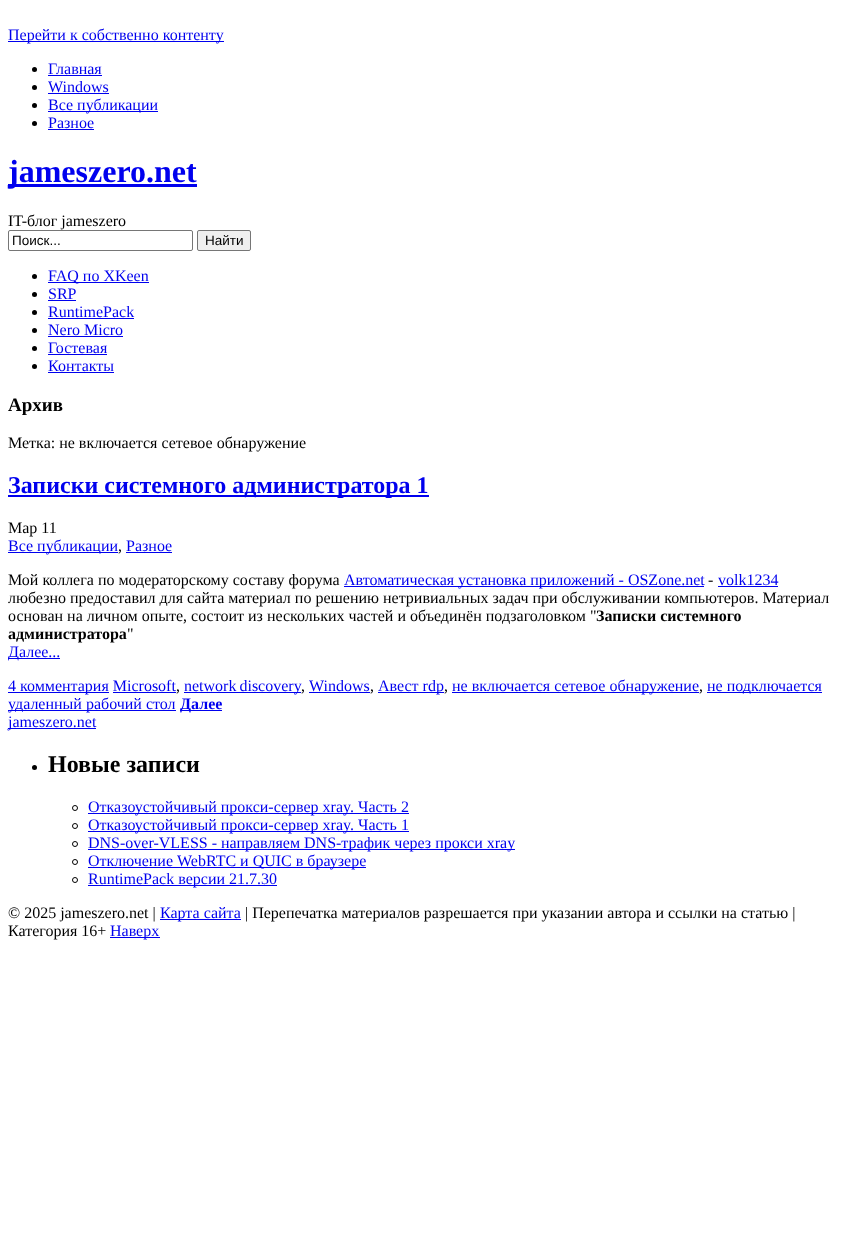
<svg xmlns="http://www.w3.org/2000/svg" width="848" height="1249">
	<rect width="100%" height="100%" fill="#FFFFFF" />
	<rect x="8" y="41" width="216" height="1" fill="#0000EE" />
	<text x="8" y="40" font-family="Liberation Serif" font-size="16" fill="#0000EE">Перейти к собственно контенту</text>
	<circle cx="34.5" cy="69.5" r="2.5" fill="#000000" />
	<text x="48" y="74" font-family="Liberation Serif" font-size="16" fill="#0000EE">Главная</text>
	<rect x="48" y="75" width="54" height="1" fill="#0000EE" />
	<circle cx="34.5" cy="87.5" r="2.5" fill="#000000" />
	<text x="48" y="92" font-family="Liberation Serif" font-size="16" fill="#0000EE">Windows</text>
	<rect x="48" y="93" width="61" height="1" fill="#0000EE" />
	<circle cx="34.5" cy="105.5" r="2.5" fill="#000000" />
	<rect x="48" y="111" width="110" height="1" fill="#0000EE" />
	<text x="48" y="110" font-family="Liberation Serif" font-size="16" fill="#0000EE">Все публикации</text>
	<circle cx="34.5" cy="123.5" r="2.5" fill="#000000" />
	<text x="48" y="128" font-family="Liberation Serif" font-size="16" fill="#0000EE">Разное</text>
	<rect x="48" y="129" width="46" height="1" fill="#0000EE" />
	<rect x="8" y="184" width="189" height="3" fill="#0000EE" />
	<text x="8" y="182" font-family="Liberation Serif" font-size="32" font-weight="700" fill="#0000EE">jameszero.net</text>
	<text x="8" y="226" font-family="Liberation Serif" font-size="16" fill="#000000">IT-блог jameszero</text>
	<rect x="8.5" y="230.5" width="184" height="20" rx="1.5" fill="none" stroke="#767676" />
	<text x="12" y="245" font-family="Liberation Sans" font-size="13.5" fill="#000000">Поиск...</text>
	<rect x="197.5" y="230.5" width="53" height="20" rx="1.5" fill="#EFEFEF" stroke="#767676" />
	<text x="205" y="245" font-family="Liberation Sans" font-size="13.5" fill="#000000">Найти</text>
	<circle cx="34.5" cy="276.5" r="2.5" fill="#000000" />
	<rect x="48" y="282" width="101" height="1" fill="#0000EE" />
	<text x="48" y="281" font-family="Liberation Serif" font-size="16" fill="#0000EE">FAQ по XKeen</text>
	<circle cx="34.5" cy="294.5" r="2.5" fill="#000000" />
	<text x="48" y="299" font-family="Liberation Serif" font-size="16" fill="#0000EE">SRP</text>
	<rect x="48" y="300" width="28" height="1" fill="#0000EE" />
	<circle cx="34.5" cy="312.5" r="2.5" fill="#000000" />
	<text x="48" y="317" font-family="Liberation Serif" font-size="16" fill="#0000EE">RuntimePack</text>
	<rect x="48" y="318" width="86" height="1" fill="#0000EE" />
	<circle cx="34.5" cy="330.5" r="2.5" fill="#000000" />
	<text x="48" y="335" font-family="Liberation Serif" font-size="16" fill="#0000EE">Nero Micro</text>
	<rect x="48" y="336" width="75" height="1" fill="#0000EE" />
	<circle cx="34.5" cy="348.5" r="2.5" fill="#000000" />
	<text x="48" y="353" font-family="Liberation Serif" font-size="16" fill="#0000EE">Гостевая</text>
	<rect x="48" y="354" width="59" height="1" fill="#0000EE" />
	<circle cx="34.5" cy="366.5" r="2.5" fill="#000000" />
	<text x="48" y="371" font-family="Liberation Serif" font-size="16" fill="#0000EE">Контакты</text>
	<rect x="48" y="372" width="66" height="1" fill="#0000EE" />
	<text x="8" y="411" font-family="Liberation Serif" font-size="19" font-weight="700" fill="#000000">Архив</text>
	<text x="8" y="448" font-family="Liberation Serif" font-size="16" fill="#000000">Метка: не включается сетевое обнаружение</text>
	<rect x="8" y="495" width="421" height="2" fill="#0000EE" />
	<text x="8" y="493" font-family="Liberation Serif" font-size="24" font-weight="700" fill="#0000EE">Записки системного администратора 1</text>
	<text x="8" y="533" font-family="Liberation Serif" font-size="16" fill="#000000">Мар 11</text>
	<rect x="8" y="552" width="110" height="1" fill="#0000EE" />
	<text x="8" y="551" font-family="Liberation Serif" font-size="16" fill="#0000EE">Все публикации</text>
	<text x="118" y="551" font-family="Liberation Serif" font-size="16" fill="#000000">,</text>
	<rect x="126" y="552" width="46" height="1" fill="#0000EE" />
	<text x="126" y="551" font-family="Liberation Serif" font-size="16" fill="#0000EE">Разное</text>
	<text x="8" y="585" font-family="Liberation Serif" font-size="16" fill="#000000">Мой коллега по модераторскому составу форума</text>
	<rect x="344" y="586" width="360" height="1" fill="#0000EE" />
	<text x="344" y="585" font-family="Liberation Serif" font-size="16" fill="#0000EE">Автоматическая установка приложений - OSZone.net</text>
	<text x="708" y="585" font-family="Liberation Serif" font-size="16" fill="#000000">-</text>
	<text x="718" y="585" font-family="Liberation Serif" font-size="16" fill="#0000EE">volk1234</text>
	<rect x="718" y="586" width="60" height="1" fill="#0000EE" />
	<g font-family="Liberation Serif" font-size="16" fill="#000000">
		<text x="8" y="603">любезно предоставил для сайта материал по решению нетривиальных задач при обслуживании компьютеров. Материал</text>
		<text x="8" y="621">основан на личном опыте, состоит из нескольких частей и объединён подзаголовком "</text>
	</g>
	<text x="596" y="621" font-family="Liberation Serif" font-size="16" font-weight="700" fill="#000000">Записки системного</text>
	<text x="127" y="639" font-family="Liberation Serif" font-size="16" fill="#000000">"</text>
	<text x="8" y="639" font-family="Liberation Serif" font-size="16" font-weight="700" fill="#000000">администратора</text>
	<rect x="8" y="658" width="52" height="1" fill="#0000EE" />
	<text x="8" y="657" font-family="Liberation Serif" font-size="16" fill="#0000EE">Далее...</text>
	<rect x="8" y="692" width="101" height="1" fill="#0000EE" />
	<text x="8" y="691" font-family="Liberation Serif" font-size="16" fill="#0000EE">4 комментария Microsoft</text>
	<text x="176" y="691" font-family="Liberation Serif" font-size="16" fill="#000000">,</text>
	<rect x="113" y="692" width="63" height="1" fill="#0000EE" />
	<rect x="184" y="692" width="117" height="1" fill="#0000EE" />
	<text x="184" y="691" word-spacing="-1" font-family="Liberation Serif" font-size="16" fill="#0000EE">network discovery</text>
	<text x="301" y="691" font-family="Liberation Serif" font-size="16" fill="#000000">,</text>
	<text x="309" y="691" font-family="Liberation Serif" font-size="16" fill="#0000EE">Windows</text>
	<text x="370" y="691" font-family="Liberation Serif" font-size="16" fill="#000000">,</text>
	<rect x="309" y="692" width="61" height="1" fill="#0000EE" />
	<rect x="378" y="692" width="66" height="1" fill="#0000EE" />
	<text x="378" y="691" font-family="Liberation Serif" font-size="16" fill="#0000EE">Авест rdp</text>
	<text x="444" y="691" font-family="Liberation Serif" font-size="16" fill="#000000">,</text>
	<rect x="452" y="692" width="247" height="1" fill="#0000EE" />
	<text x="452" y="691" font-family="Liberation Serif" font-size="16" fill="#0000EE">не включается сетевое обнаружение</text>
	<text x="699" y="691" font-family="Liberation Serif" font-size="16" fill="#000000">,</text>
	<rect x="707" y="692" width="115" height="1" fill="#0000EE" />
	<text x="707" y="691" font-family="Liberation Serif" font-size="16" fill="#0000EE">не подключается</text>
	<rect x="8" y="710" width="168" height="1" fill="#0000EE" />
	<text x="8" y="709" font-family="Liberation Serif" font-size="16" fill="#0000EE">удаленный рабочий стол</text>
	<rect x="180" y="710" width="42" height="1" fill="#0000EE" />
	<text x="180" y="709" font-family="Liberation Serif" font-size="16" font-weight="700" fill="#0000EE">Далее</text>
	<rect x="8" y="728" width="88" height="1" fill="#0000EE" />
	<text x="8" y="727" font-family="Liberation Serif" font-size="16" fill="#0000EE">jameszero.net</text>
	<circle cx="34.5" cy="767.5" r="2.5" fill="#000000" />
	<text x="48" y="772" font-family="Liberation Serif" font-size="24" font-weight="700" fill="#000000">Новые записи</text>
	<circle cx="75" cy="808" r="2.5" fill="none" stroke="#000000" />
	<rect x="88" y="813" width="321" height="1" fill="#0000EE" />
	<text x="88" y="812" font-family="Liberation Serif" font-size="16" fill="#0000EE">Отказоустойчивый прокси-сервер xray. Часть 2</text>
	<circle cx="75" cy="826" r="2.5" fill="none" stroke="#000000" />
	<rect x="88" y="831" width="321" height="1" fill="#0000EE" />
	<text x="88" y="830" font-family="Liberation Serif" font-size="16" fill="#0000EE">Отказоустойчивый прокси-сервер xray. Часть 1</text>
	<circle cx="75" cy="844" r="2.5" fill="none" stroke="#000000" />
	<rect x="88" y="849" width="427" height="1" fill="#0000EE" />
	<text x="88" y="848" font-family="Liberation Serif" font-size="16" fill="#0000EE">DNS-over-VLESS - направляем DNS-трафик через прокси xray</text>
	<circle cx="75" cy="862" r="2.5" fill="none" stroke="#000000" />
	<rect x="88" y="867" width="278" height="1" fill="#0000EE" />
	<text x="88" y="866" font-family="Liberation Serif" font-size="16" fill="#0000EE">Отключение WebRTC и QUIC в браузере</text>
	<circle cx="75" cy="880" r="2.5" fill="none" stroke="#000000" />
	<rect x="88" y="885" width="189" height="1" fill="#0000EE" />
	<text x="88" y="884" font-family="Liberation Serif" font-size="16" fill="#0000EE">RuntimePack версии 21.7.30</text>
	<text x="8" y="918" font-family="Liberation Serif" font-size="16" fill="#000000">© 2025 jameszero.net |</text>
	<rect x="160" y="919" width="81" height="1" fill="#0000EE" />
	<text x="160" y="918" font-family="Liberation Serif" font-size="16" fill="#0000EE">Карта сайта</text>
	<g font-family="Liberation Serif" font-size="16" fill="#000000">
		<text x="245" y="918">| Перепечатка материалов разрешается при указании автора и ссылки на статью |</text>
		<text x="8" y="936">Категория 16+</text>
	</g>
	<rect x="110" y="937" width="50" height="1" fill="#0000EE" />
	<text x="110" y="936" font-family="Liberation Serif" font-size="16" fill="#0000EE">Наверх</text>
</svg>
